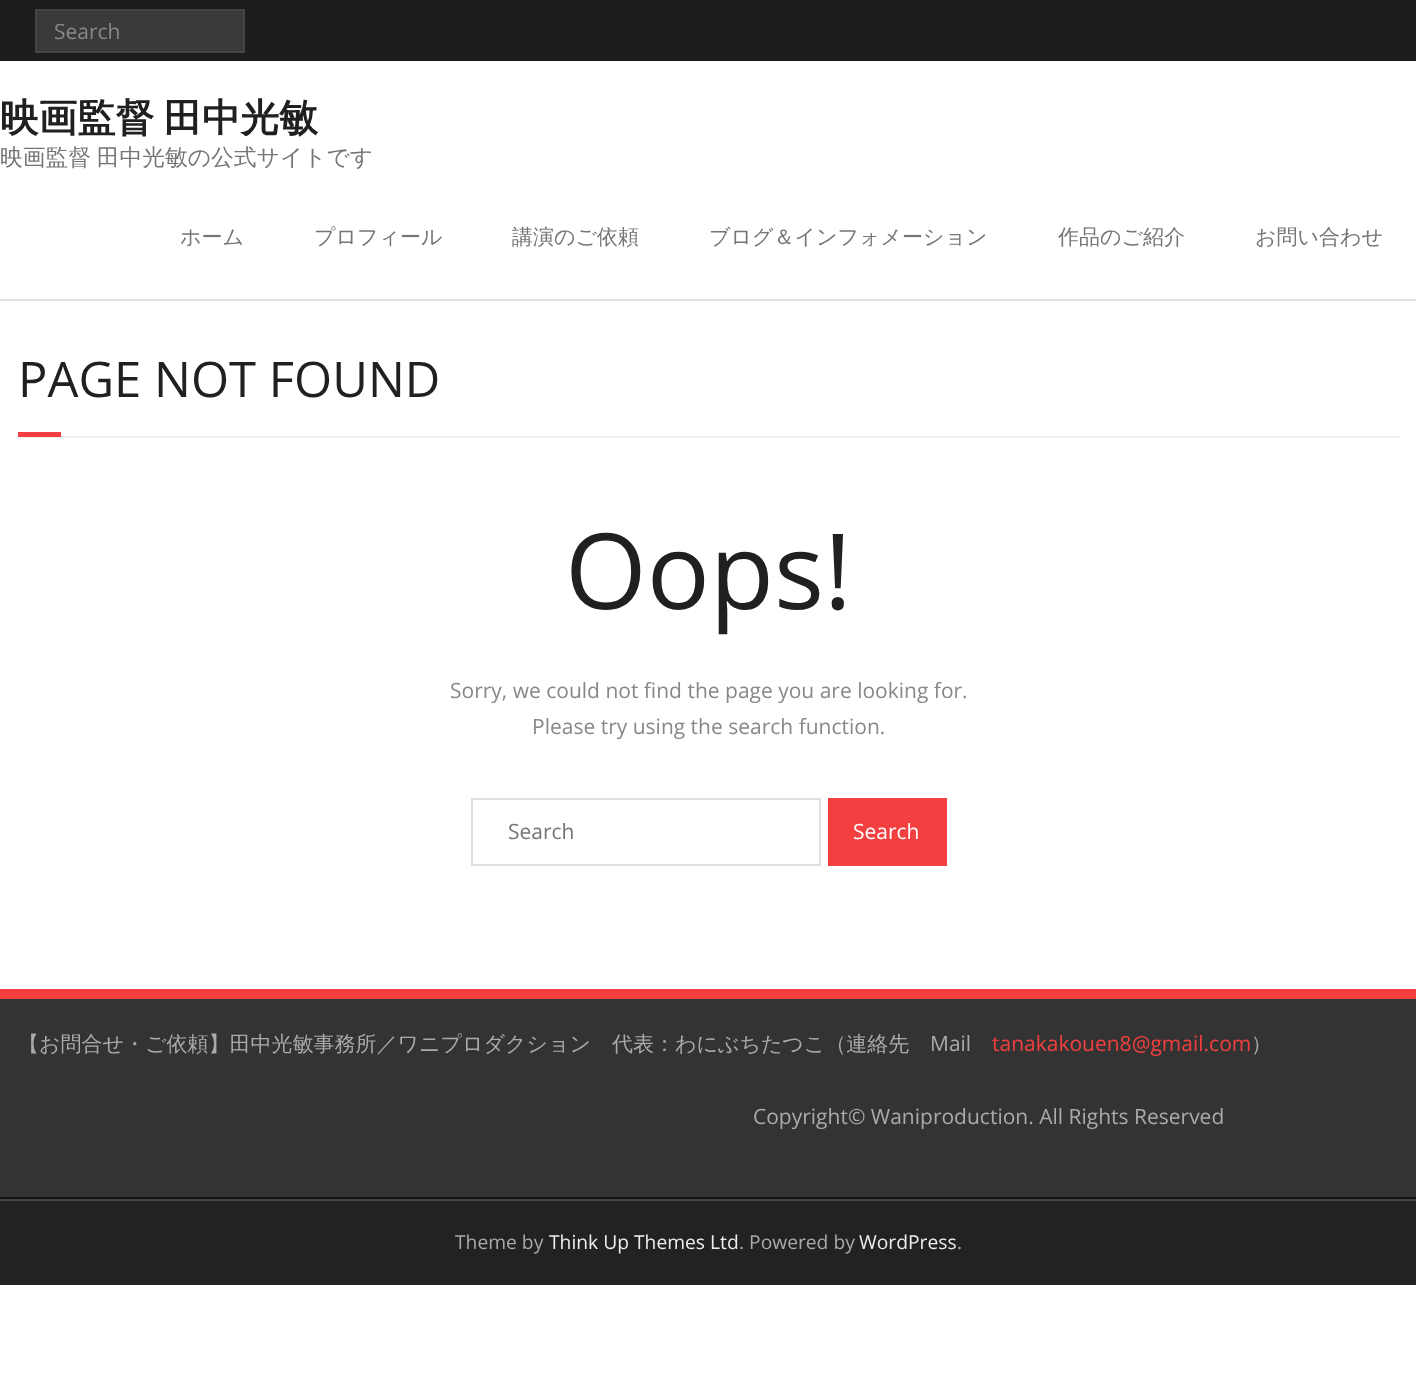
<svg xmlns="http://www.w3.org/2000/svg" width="1416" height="1380">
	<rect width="100%" height="100%" fill="#FFFFFF" />
	<rect x="0" y="0" width="1416" height="61" fill="#1C1C1C" />
	<rect x="36" y="10" width="208" height="42" fill="#3A3A3A" stroke="#444444" stroke-width="2" />
	<text x="54" y="39" font-family="Open Sans" font-size="21" fill="#888888">Search</text>
	<rect x="0" y="299" width="1416" height="2" fill="#E0E0E0" />
	<text x="0" y="131" word-spacing="-2" font-family="WenQuanYi Zen Hei" font-size="38.5" font-weight="700" fill="#202020">映画監督 田中光敏</text>
	<text x="0" y="165" word-spacing="-1" font-family="WenQuanYi Zen Hei" font-size="22.75" font-weight="500" fill="#757575">映画監督 田中光敏の公式サイトです</text>
	<g font-family="WenQuanYi Zen Hei" font-size="21" font-weight="500" fill="#757575">
		<text x="180" y="244">ホーム</text>
		<text x="314" y="244">プロフィール</text>
		<text x="512" y="244">講演のご依頼</text>
		<text x="709" y="244">ブログ＆インフォメーション</text>
		<text x="1058" y="244">作品のご紹介</text>
		<text x="1255" y="244">お問い合わせ</text>
	</g>
	<text x="18" y="397" font-family="Open Sans" font-size="49" fill="#202020">PAGE NOT FOUND</text>
	<rect x="18" y="436" width="1382" height="2" fill="#EEEEEE" />
	<rect x="18" y="432" width="43" height="5" fill="#F33F3F" />
	<text x="565" y="609" font-family="Open Sans" font-size="105" fill="#202020">Oops!</text>
	<g font-family="Open Sans" font-size="21" fill="#888888">
		<text x="450" y="698">Sorry, we could not find the page you are looking for.</text>
		<text x="532" y="734">Please try using the search function.</text>
	</g>
	<rect x="472" y="799" width="348" height="66" fill="none" stroke="#E0E0E0" stroke-width="2" />
	<text x="508" y="839" font-family="Open Sans" font-size="21" fill="#757575">Search</text>
	<rect x="828" y="798" width="119" height="68" fill="#F33F3F" />
	<text x="853" y="839" font-family="Open Sans" font-size="21" fill="#FFFFFF">Search</text>
	<rect x="0" y="999" width="1416" height="198" fill="#333333" />
	<rect x="0" y="989" width="1416" height="10" fill="#F33F3F" />
	<rect x="0" y="1197" width="1416" height="2" fill="#111111" />
	<text x="18" y="1051" font-family="WenQuanYi Zen Hei" font-size="21" font-weight="500" fill="#AAAAAA">【お問合せ・ご依頼】田中光敏事務所／ワニプロダクション　代表：わにぶちたつこ（連絡先</text>
	<text x="930" y="1051" font-family="Open Sans" font-size="21" fill="#AAAAAA">Mail</text>
	<text x="992" y="1051" font-family="Open Sans" font-size="21" fill="#F33F3F">tanakakouen8@gmail.com</text>
	<text x="1251" y="1051" font-family="WenQuanYi Zen Hei" font-size="21" font-weight="500" fill="#AAAAAA">）</text>
	<text x="753" y="1124" font-family="Open Sans" font-size="21" fill="#AAAAAA">Copyright© Waniproduction. All Rights Reserved</text>
	<rect x="0" y="1201" width="1416" height="84" fill="#222222" />
	<rect x="0" y="1199" width="1416" height="2" fill="#444444" />
	<text x="455" y="1249" font-family="Open Sans" font-size="19.25" fill="#AAAAAA">Theme by</text>
	<text x="549" y="1249" font-family="Open Sans" font-size="19.25" fill="#EEEEEE">Think Up Themes Ltd</text>
	<text x="739" y="1249" font-family="Open Sans" font-size="19.25" fill="#AAAAAA">. Powered by</text>
	<text x="859" y="1249" font-family="Open Sans" font-size="19.25" fill="#EEEEEE">WordPress</text>
	<text x="957" y="1249" font-family="Open Sans" font-size="19.25" fill="#AAAAAA">.</text>
</svg>
